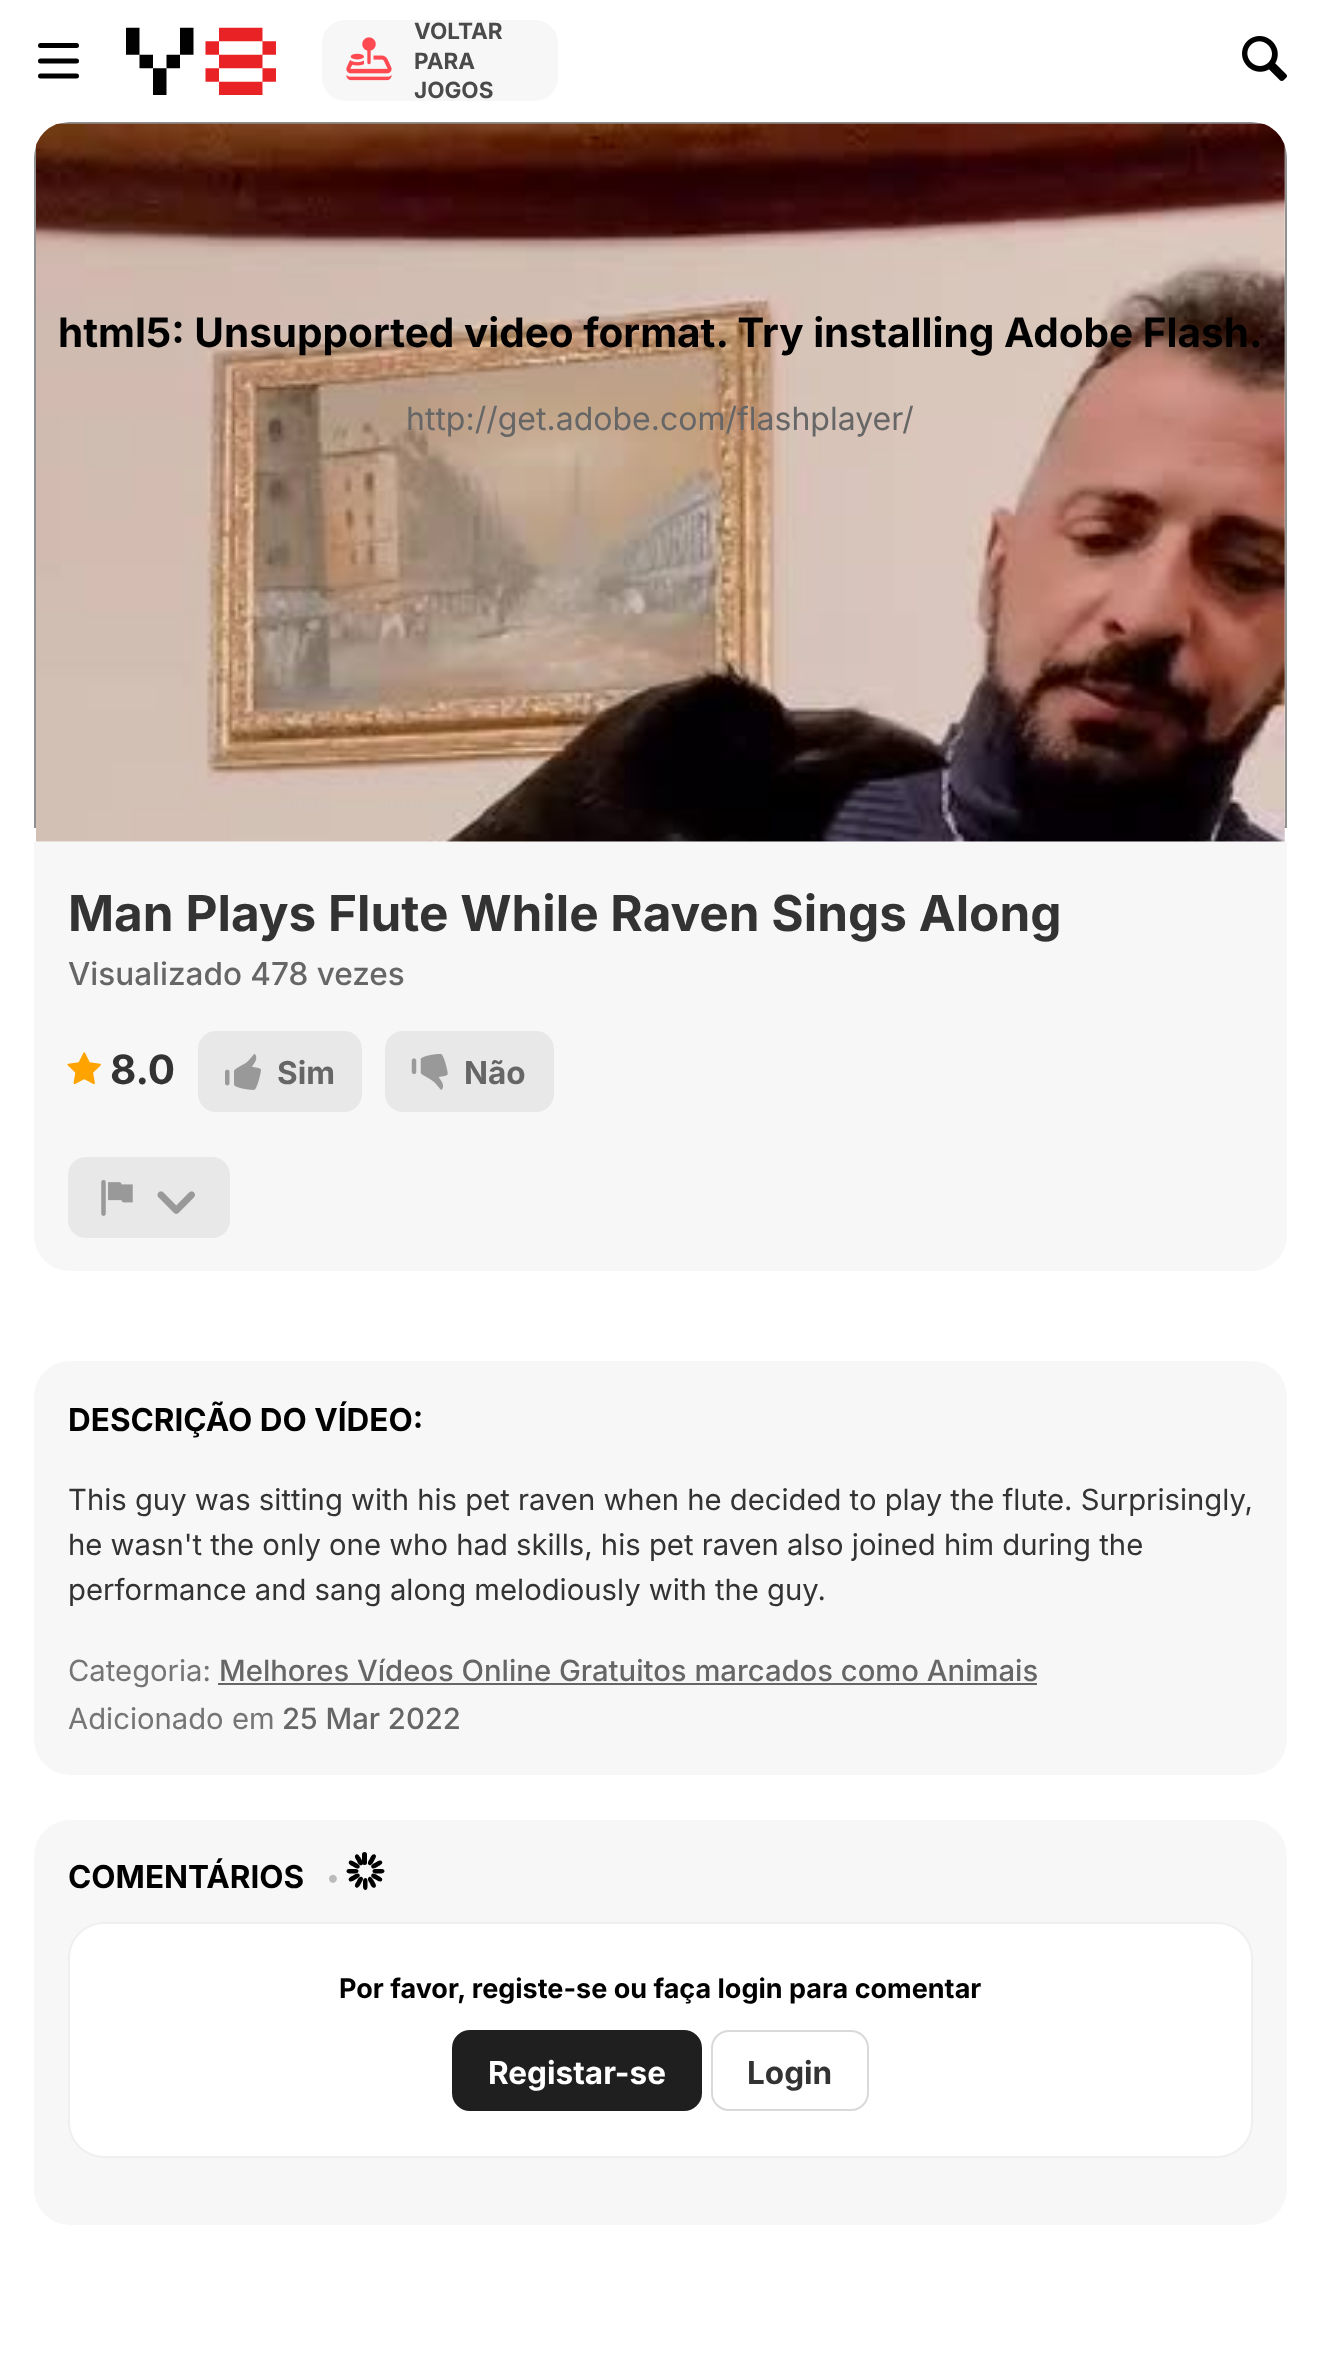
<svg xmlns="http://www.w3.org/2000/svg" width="1319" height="2365">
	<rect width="100%" height="100%" fill="#FFFFFF" />
	<path d="M40.5 45.5H76.5M40.5 61H76.5M76.5 76H40.5" fill="none" stroke="#000000" stroke-width="5" stroke-linecap="round" />
	<image x="126" y="27" width="150" height="68" href="assets/img1.png" />
	<rect x="322" y="20" width="236" height="81" rx="23" fill="#F7F7F7" />
	<text x="414" y="39" font-family="Inter" font-size="22.5" font-weight="700" fill="#4A4A4A">VOLTAR</text>
	<image x="346" y="37" width="46" height="44" href="assets/img2.png" />
	<g font-family="Inter" font-size="22.5" font-weight="700" fill="#4A4A4A">
		<text x="414" y="69">PARA</text>
		<text x="414" y="98">JOGOS</text>
	</g>
	<image x="1242" y="36" width="45" height="45" href="assets/img3.png" />
	<path d="M34 158V828H1287V158C1287 154 1286 150 1285 146V826H36V146C35 150 34 154 34 158ZM70 122C66 122 62 123 58 124H1263C1259 123 1255 122 1251 122Z" fill="#909090" fill-rule="evenodd" />
	<image x="36" y="123" width="1249" height="719" href="assets/img4.png" />
	<text x="58" y="347" font-family="Inter" font-size="40.5" font-weight="700" fill="#000000">html5: Unsupported video format. Try installing Adobe Flash.</text>
	<text x="406" y="430" font-family="Inter" font-size="32" fill="#666666">http://get.adobe.com/flashplayer/</text>
	<path d="M34 842H1287V1235C1287 1255 1271 1271 1251 1271H70C50 1271 34 1255 34 1235Z" fill="#F7F7F7" />
	<text x="68" y="931" font-family="Inter" font-size="49.5" font-weight="700" fill="#333333">Man Plays Flute While Raven Sings Along</text>
	<text x="68" y="985" font-family="Inter" font-size="31.5" font-weight="500" fill="#666666">Visualizado 478 vezes</text>
	<image x="67" y="1052" width="34" height="33" href="assets/img5.png" />
	<text x="110" y="1084" font-family="Inter" font-size="40.5" font-weight="700" fill="#333333">8.0</text>
	<rect x="198" y="1031" width="164" height="81" rx="18" fill="#E8E8E8" />
	<image x="225" y="1054" width="36" height="36" href="assets/img6.png" />
	<text x="277" y="1084" font-family="Inter" font-size="31.5" font-weight="700" fill="#666666">Sim</text>
	<rect x="385" y="1031" width="169" height="81" rx="18" fill="#E8E8E8" />
	<image x="411" y="1053" width="37" height="37" href="assets/img7.png" />
	<text x="464" y="1084" font-family="Inter" font-size="31.5" font-weight="700" fill="#666666">Não</text>
	<rect x="68" y="1157" width="162" height="81" rx="18" fill="#E8E8E8" />
	<image x="101" y="1179" width="32" height="37" href="assets/img8.png" />
	<image x="157" y="1191" width="38" height="23" href="assets/img9.png" />
	<rect x="34" y="1361" width="1253" height="414" rx="36" fill="#F7F7F7" />
	<text x="68" y="1431" font-family="Inter" font-size="31.5" font-weight="700" fill="#000000">DESCRIÇÃO DO VÍDEO:</text>
	<g font-family="Inter" font-size="29.25" fill="#333333">
		<text x="68" y="1510">This guy was sitting with his pet raven when he decided to play the flute. Surprisingly,</text>
		<text x="68" y="1555">he wasn't the only one who had skills, his pet raven also joined him during the</text>
		<text x="68" y="1600">performance and sang along melodiously with the guy.</text>
	</g>
	<text x="68" y="1681" font-family="Inter" font-size="29.25" fill="#757575">Categoria:</text>
	<text x="219" y="1681" font-family="Inter" font-size="29.25" font-weight="500" fill="#666666">Melhores Vídeos Online Gratuitos marcados como Animais</text>
	<rect x="218" y="1683" width="819" height="2" fill="#666666" />
	<text x="68" y="1729" font-family="Inter" font-size="29.25" fill="#757575">Adicionado em</text>
	<text x="282" y="1729" font-family="Inter" font-size="29.25" font-weight="500" fill="#666666">25 Mar 2022</text>
	<rect x="34" y="1820" width="1253" height="405" rx="36" fill="#F7F7F7" />
	<text x="68" y="1888" font-family="Inter" font-size="31.5" font-weight="700" fill="#000000">COMENTÁRIOS</text>
	<text x="327" y="1886" font-family="Inter" font-size="25" font-weight="700" fill="#BBBBBB">•</text>
	<rect x="362" y="1852" width="5" height="13" rx="2.5" fill="#000000" />
	<path d="M375 1854.5C377.5 1856 374.5 1859.5 374 1861C373 1862.5 371 1866.5 369 1865C366.5 1863.5 369 1860 370 1858.5C370.5 1857 372.5 1853 375 1854.5Z" fill="#000000" />
	<path d="M382 1861.5C383.5 1864 379 1865.5 378 1866.5C376.5 1867.5 372.5 1870 371.5 1867.5C370 1865 374 1863.5 375.5 1862.5C377 1861.5 380.5 1859 382 1861.5Z" fill="#000000" />
	<path d="M384.5 1871C384.5 1874 380 1873.5 378.5 1873.5C376.5 1873.5 372.5 1874 372.5 1871C372.5 1868.5 376.5 1869 378.5 1869C380 1869 384.5 1868.5 384.5 1871Z" fill="#000000" />
	<path d="M382 1880.5C380.5 1883 377 1880.5 375.5 1879.5C374 1878.5 370 1877 371.5 1874.5C372.5 1872 376.5 1874.5 378 1875.5C379 1876.5 383.5 1878 382 1880.5Z" fill="#000000" />
	<path d="M375 1887.5C372.5 1889 370.5 1885 370 1883.5C369 1882 366.5 1878.5 369 1877C371 1875.5 373 1879.5 374 1881C374.5 1882.5 377.5 1886 375 1887.5Z" fill="#000000" />
	<path d="M365.5 1890C362.5 1890 363 1885.5 363 1884C363 1882.5 362.5 1878 365.5 1878C368 1878 367.5 1882.5 367.5 1884C367.5 1885.5 368 1890 365.5 1890Z" fill="#000000" />
	<path d="M356 1887.5C353.5 1886 356 1882.5 357 1881C357.5 1879.5 359.5 1875.5 362 1877C364.5 1878.5 361.5 1882 361 1883.5C360 1885 358 1889 356 1887.5Z" fill="#000000" />
	<path d="M349 1880.5C347.5 1878 351.5 1876.5 353 1875.5C354.5 1874.5 358 1872 359.5 1874.5C361 1877 356.5 1878.5 355.5 1879.5C354 1880.5 350 1883 349 1880.5Z" fill="#000000" />
	<path d="M346.5 1871C346.5 1868.5 350.5 1869 352.5 1869C354 1869 358.5 1868.5 358.5 1871C358.5 1874 354 1873.5 352.5 1873.5C350.5 1873.5 346.5 1874 346.5 1871Z" fill="#000000" />
	<path d="M349 1861.5C350 1859 354 1861.5 355.5 1862.5C356.5 1863.5 361 1865 359.5 1867.5C358 1870 354.5 1867.5 353 1866.5C351.5 1865.5 347.5 1864 349 1861.5Z" fill="#000000" />
	<path d="M356 1854.5C358 1853 360 1857 361 1858.5C361.5 1860 364.5 1863.5 362 1865C359.5 1866.5 357.5 1862.5 357 1861C356 1859.5 353.5 1856 356 1854.5Z" fill="#000000" />
	<rect x="69" y="1923" width="1183" height="234" rx="35" fill="#FFFFFF" stroke="#EFEFEF" stroke-width="2" />
	<text x="339" y="1998" font-family="Inter" font-size="27" font-weight="700" fill="#000000">Por favor, registe-se ou faça login para comentar</text>
	<rect x="453" y="2031" width="248" height="79" rx="17" fill="#1F1F1F" stroke="#1F1F1F" stroke-width="2" />
	<text x="488" y="2084" font-family="Inter" font-size="31.5" font-weight="700" fill="#FFFFFF">Registar-se</text>
	<rect x="712" y="2031" width="156" height="79" rx="17" fill="none" stroke="#D9D9D9" stroke-width="2" />
	<text x="747" y="2084" font-family="Inter" font-size="31.5" font-weight="700" fill="#333333">Login</text>
</svg>
